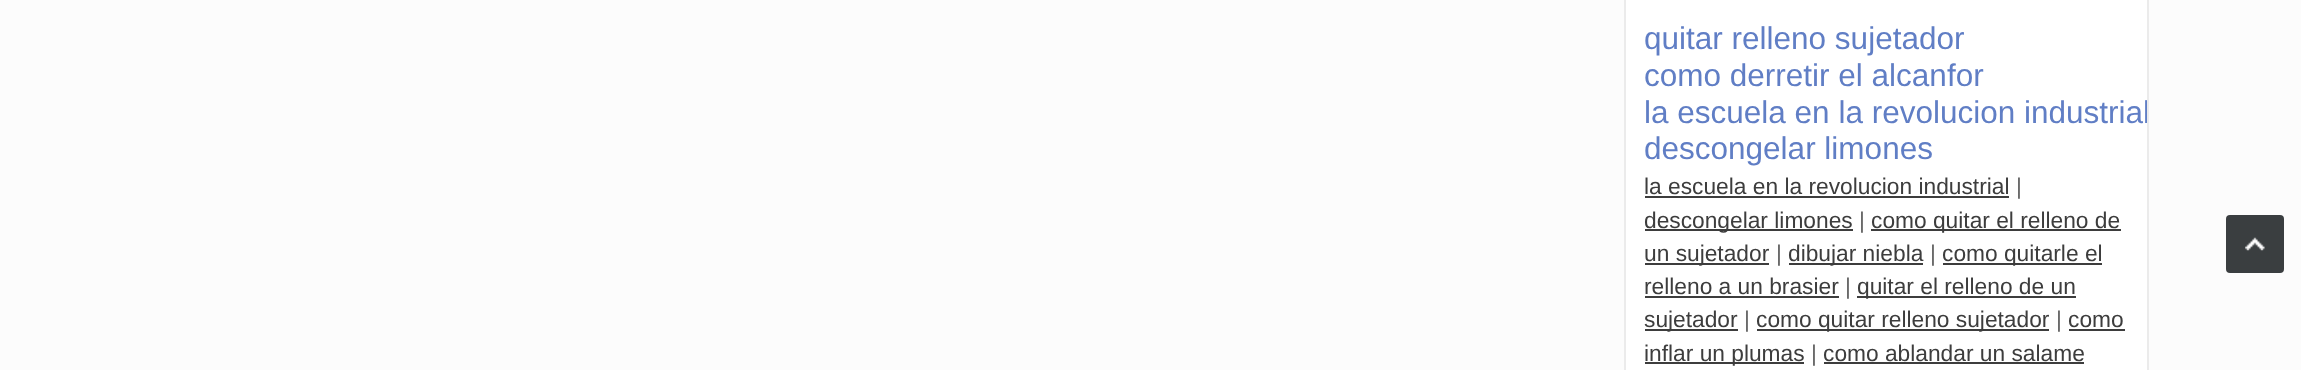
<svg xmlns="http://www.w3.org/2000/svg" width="2301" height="370">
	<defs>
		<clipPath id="clip1"><rect x="1626" y="0" width="521" height="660" /></clipPath>
	</defs>
	<rect width="100%" height="100%" fill="#FCFCFC" />
	<rect x="1626" y="0" width="521" height="370" fill="#FFFFFF" />
	<rect x="2147" y="0" width="2" height="370" fill="#EBEBEB" />
	<rect x="1624" y="0" width="2" height="370" fill="#EBEBEB" />
	<g font-family="Liberation Sans" font-size="31.5" fill="#607EC5">
		<text x="1644" y="49">quitar relleno sujetador</text>
		<text x="1644" y="86">como derretir el alcanfor</text>
	</g>
	<g clip-path="url(#clip1)">
		<text x="1644" y="123" font-family="Liberation Sans" font-size="31.5" fill="#607EC5">la escuela en la revolucion industrial</text>
	</g>
	<text x="1644" y="159" font-family="Liberation Sans" font-size="31.5" fill="#607EC5">descongelar limones</text>
	<text x="1644" y="194" font-family="Liberation Sans" font-size="22.75" fill="#3D3D3D">la escuela en la revolucion industrial</text>
	<rect x="1645" y="196" width="364" height="2" fill="#3D3D3D" />
	<text x="2016" y="194" font-family="Liberation Sans" font-size="22.75" fill="#666666">|</text>
	<rect x="1645" y="229" width="208" height="2" fill="#3D3D3D" />
	<text x="1644" y="228" font-family="Liberation Sans" font-size="22.75" fill="#3D3D3D">descongelar limones</text>
	<text x="1859" y="228" font-family="Liberation Sans" font-size="22.75" fill="#666666">|</text>
	<rect x="1871" y="229" width="250" height="2" fill="#3D3D3D" />
	<text x="1871" y="228" font-family="Liberation Sans" font-size="22.75" fill="#3D3D3D">como quitar el relleno de</text>
	<rect x="1645" y="263" width="124" height="2" fill="#3D3D3D" />
	<text x="1644" y="261" font-family="Liberation Sans" font-size="22.75" fill="#3D3D3D">un sujetador</text>
	<text x="1776" y="261" font-family="Liberation Sans" font-size="22.75" fill="#666666">|</text>
	<rect x="1789" y="263" width="134" height="2" fill="#3D3D3D" />
	<text x="1788" y="261" font-family="Liberation Sans" font-size="22.75" fill="#3D3D3D">dibujar niebla</text>
	<text x="1930" y="261" font-family="Liberation Sans" font-size="22.75" fill="#666666">|</text>
	<rect x="1943" y="263" width="159" height="2" fill="#3D3D3D" />
	<g font-family="Liberation Sans" font-size="22.75" fill="#3D3D3D">
		<text x="1942" y="261">como quitarle el</text>
		<text x="1644" y="294">relleno a un brasier</text>
	</g>
	<rect x="1645" y="296" width="194" height="2" fill="#3D3D3D" />
	<text x="1845" y="294" font-family="Liberation Sans" font-size="22.75" fill="#666666">|</text>
	<rect x="1857" y="296" width="219" height="2" fill="#3D3D3D" />
	<text x="1857" y="294" font-family="Liberation Sans" font-size="22.75" fill="#3D3D3D">quitar el relleno de un</text>
	<rect x="1645" y="329" width="93" height="2" fill="#3D3D3D" />
	<text x="1644" y="327" font-family="Liberation Sans" font-size="22.75" fill="#3D3D3D">sujetador</text>
	<text x="1744" y="327" font-family="Liberation Sans" font-size="22.75" fill="#666666">|</text>
	<rect x="1757" y="329" width="292" height="2" fill="#3D3D3D" />
	<text x="1756" y="327" font-family="Liberation Sans" font-size="22.75" fill="#3D3D3D">como quitar relleno sujetador</text>
	<text x="2056" y="327" font-family="Liberation Sans" font-size="22.75" fill="#666666">|</text>
	<text x="2068" y="327" font-family="Liberation Sans" font-size="22.75" fill="#3D3D3D">como</text>
	<rect x="2069" y="329" width="56" height="2" fill="#3D3D3D" />
	<rect x="1645" y="362" width="159" height="2" fill="#3D3D3D" />
	<text x="1644" y="361" font-family="Liberation Sans" font-size="22.75" fill="#3D3D3D">inflar un plumas</text>
	<text x="1811" y="361" font-family="Liberation Sans" font-size="22.75" fill="#666666">|</text>
	<text x="1823" y="361" font-family="Liberation Sans" font-size="22.75" fill="#3D3D3D">como ablandar un salame</text>
	<rect x="1824" y="362" width="260" height="2" fill="#3D3D3D" />
	<rect x="2226" y="215" width="58" height="58" rx="4" fill="#3A3E40" />
	<image x="2245" y="237" width="20" height="14" href="assets/img1.png" />
</svg>
